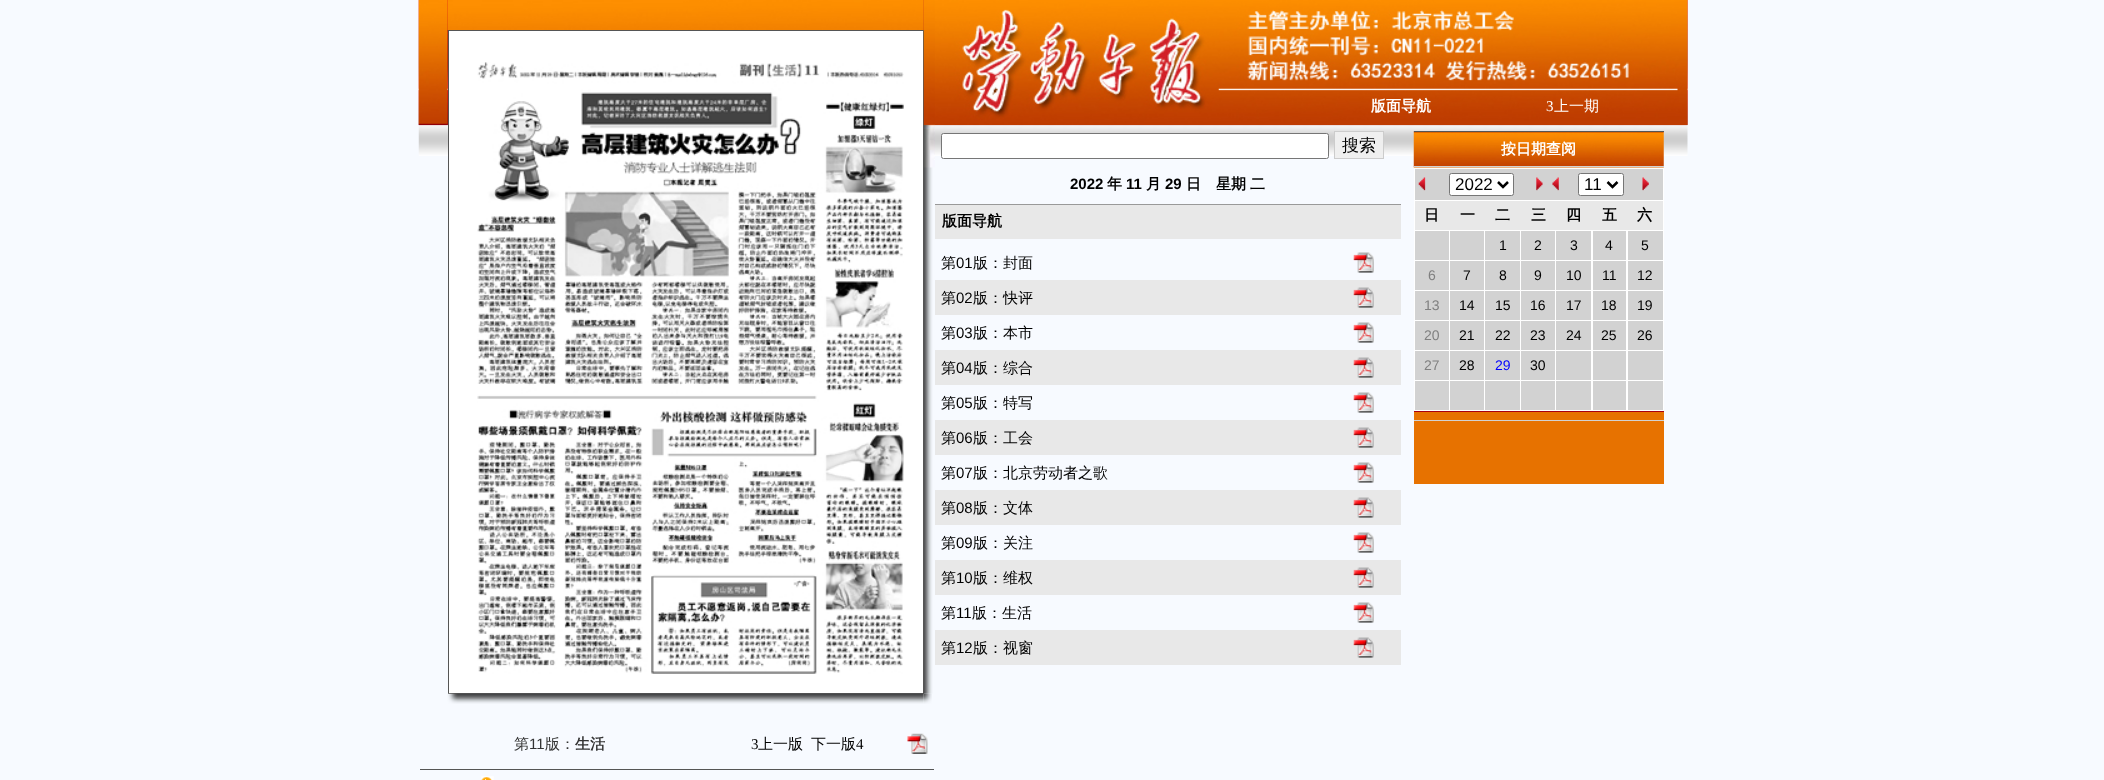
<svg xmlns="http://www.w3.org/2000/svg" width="2104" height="780">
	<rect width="100%" height="100%" fill="#F7FAFF" />
	<image x="418" y="0" width="1270" height="156" href="assets/img1.png" />
	<image x="935" y="0" width="753" height="125" href="assets/img2.png" />
	<text x="1371" y="111" font-family="WenQuanYi Zen Hei" font-size="15" font-weight="700" fill="#FFFFFF">版面导航</text>
	<text x="1546" y="111" font-family="Liberation Serif" font-size="15" fill="#FFFFFF">3</text>
	<text x="1554" y="111" font-family="WenQuanYi Zen Hei" font-size="15" font-weight="500" fill="#FFFFFF">上一期</text>
	<rect x="941.5" y="133.5" width="387" height="25" rx="2" fill="#FFFFFF" stroke="#767676" />
	<rect x="1334.5" y="131.5" width="49" height="27" fill="#EFEFEF" stroke="#CCCCCC" />
	<text x="1342" y="151" font-family="WenQuanYi Zen Hei" font-size="17" font-weight="500" fill="#000000">搜索</text>
	<text x="1070" y="189" font-family="Liberation Sans" font-size="15" font-weight="700" fill="#000000">2022</text>
	<text x="1107" y="189" font-family="WenQuanYi Zen Hei" font-size="15" font-weight="700" fill="#000000">年</text>
	<text x="1126" y="189" font-family="Liberation Sans" font-size="15" font-weight="700" fill="#000000">11</text>
	<text x="1146" y="189" font-family="WenQuanYi Zen Hei" font-size="15" font-weight="700" fill="#000000">月</text>
	<text x="1165" y="189" font-family="Liberation Sans" font-size="15" font-weight="700" fill="#000000">29</text>
	<g font-family="WenQuanYi Zen Hei" font-size="15" font-weight="700" fill="#000000">
		<text x="1186" y="189">日　星期</text>
		<text x="1250" y="189">二</text>
	</g>
	<rect x="935" y="204" width="466" height="1" fill="#999999" />
	<rect x="935" y="205" width="466" height="34" fill="#E8E8E8" />
	<text x="942" y="226" font-family="WenQuanYi Zen Hei" font-size="15" font-weight="700" fill="#000000">版面导航</text>
	<text x="941" y="268" font-family="WenQuanYi Zen Hei" font-size="15" font-weight="500" fill="#000000">第</text>
	<text x="956" y="268" font-family="Liberation Sans" font-size="15" fill="#000000">01</text>
	<text x="973" y="268" font-family="WenQuanYi Zen Hei" font-size="15" font-weight="500" fill="#000000">版：封面</text>
	<image x="1353" y="252" width="21" height="21" href="assets/img3.png" />
	<rect x="935" y="280" width="466" height="35" fill="#E8E8E8" />
	<text x="941" y="303" font-family="WenQuanYi Zen Hei" font-size="15" font-weight="500" fill="#000000">第</text>
	<text x="956" y="303" font-family="Liberation Sans" font-size="15" fill="#000000">02</text>
	<text x="973" y="303" font-family="WenQuanYi Zen Hei" font-size="15" font-weight="500" fill="#000000">版：快评</text>
	<image x="1353" y="287" width="21" height="21" href="assets/img4.png" />
	<text x="941" y="338" font-family="WenQuanYi Zen Hei" font-size="15" font-weight="500" fill="#000000">第</text>
	<text x="956" y="338" font-family="Liberation Sans" font-size="15" fill="#000000">03</text>
	<text x="973" y="338" font-family="WenQuanYi Zen Hei" font-size="15" font-weight="500" fill="#000000">版：本市</text>
	<image x="1353" y="322" width="21" height="21" href="assets/img3.png" />
	<rect x="935" y="350" width="466" height="35" fill="#E8E8E8" />
	<text x="941" y="373" font-family="WenQuanYi Zen Hei" font-size="15" font-weight="500" fill="#000000">第</text>
	<text x="956" y="373" font-family="Liberation Sans" font-size="15" fill="#000000">04</text>
	<text x="973" y="373" font-family="WenQuanYi Zen Hei" font-size="15" font-weight="500" fill="#000000">版：综合</text>
	<image x="1353" y="357" width="21" height="21" href="assets/img5.png" />
	<text x="941" y="408" font-family="WenQuanYi Zen Hei" font-size="15" font-weight="500" fill="#000000">第</text>
	<text x="956" y="408" font-family="Liberation Sans" font-size="15" fill="#000000">05</text>
	<text x="973" y="408" font-family="WenQuanYi Zen Hei" font-size="15" font-weight="500" fill="#000000">版：特写</text>
	<image x="1353" y="392" width="21" height="21" href="assets/img3.png" />
	<rect x="935" y="420" width="466" height="35" fill="#E8E8E8" />
	<text x="941" y="443" font-family="WenQuanYi Zen Hei" font-size="15" font-weight="500" fill="#000000">第</text>
	<text x="956" y="443" font-family="Liberation Sans" font-size="15" fill="#000000">06</text>
	<text x="973" y="443" font-family="WenQuanYi Zen Hei" font-size="15" font-weight="500" fill="#000000">版：工会</text>
	<image x="1353" y="427" width="21" height="21" href="assets/img5.png" />
	<text x="941" y="478" font-family="WenQuanYi Zen Hei" font-size="15" font-weight="500" fill="#000000">第</text>
	<text x="956" y="478" font-family="Liberation Sans" font-size="15" fill="#000000">07</text>
	<text x="973" y="478" font-family="WenQuanYi Zen Hei" font-size="15" font-weight="500" fill="#000000">版：北京劳动者之歌</text>
	<image x="1353" y="462" width="21" height="21" href="assets/img3.png" />
	<rect x="935" y="490" width="466" height="35" fill="#E8E8E8" />
	<text x="941" y="513" font-family="WenQuanYi Zen Hei" font-size="15" font-weight="500" fill="#000000">第</text>
	<text x="956" y="513" font-family="Liberation Sans" font-size="15" fill="#000000">08</text>
	<text x="973" y="513" font-family="WenQuanYi Zen Hei" font-size="15" font-weight="500" fill="#000000">版：文体</text>
	<image x="1353" y="497" width="21" height="21" href="assets/img5.png" />
	<text x="941" y="548" font-family="WenQuanYi Zen Hei" font-size="15" font-weight="500" fill="#000000">第</text>
	<text x="956" y="548" font-family="Liberation Sans" font-size="15" fill="#000000">09</text>
	<text x="973" y="548" font-family="WenQuanYi Zen Hei" font-size="15" font-weight="500" fill="#000000">版：关注</text>
	<image x="1353" y="532" width="21" height="21" href="assets/img3.png" />
	<rect x="935" y="560" width="466" height="35" fill="#E8E8E8" />
	<text x="941" y="583" font-family="WenQuanYi Zen Hei" font-size="15" font-weight="500" fill="#000000">第</text>
	<text x="956" y="583" font-family="Liberation Sans" font-size="15" fill="#000000">10</text>
	<text x="973" y="583" font-family="WenQuanYi Zen Hei" font-size="15" font-weight="500" fill="#000000">版：维权</text>
	<image x="1353" y="567" width="21" height="21" href="assets/img5.png" />
	<text x="941" y="618" font-family="WenQuanYi Zen Hei" font-size="15" font-weight="500" fill="#000000">第</text>
	<text x="956" y="618" font-family="Liberation Sans" font-size="15" fill="#000000">11</text>
	<text x="972" y="618" font-family="WenQuanYi Zen Hei" font-size="15" font-weight="500" fill="#000000">版：生活</text>
	<image x="1353" y="602" width="21" height="21" href="assets/img3.png" />
	<rect x="935" y="630" width="466" height="35" fill="#E8E8E8" />
	<text x="941" y="653" font-family="WenQuanYi Zen Hei" font-size="15" font-weight="500" fill="#000000">第</text>
	<text x="956" y="653" font-family="Liberation Sans" font-size="15" fill="#000000">12</text>
	<text x="973" y="653" font-family="WenQuanYi Zen Hei" font-size="15" font-weight="500" fill="#000000">版：视窗</text>
	<image x="1353" y="637" width="21" height="21" href="assets/img5.png" />
	<image x="1413" y="131" width="251" height="37" href="assets/img6.png" />
	<rect x="1414" y="131" width="250" height="1" fill="#555555" />
	<rect x="1414" y="166" width="250" height="1" fill="#D2D2D2" />
	<text x="1501" y="154" font-family="WenQuanYi Zen Hei" font-size="15" font-weight="700" fill="#FFFFFF">按日期查阅</text>
	<rect x="1414" y="168" width="250" height="243" fill="#FFFFFF" />
	<rect x="1415" y="169" width="248" height="31" fill="#D2D2D2" />
	<image x="1418" y="177" width="8" height="14" href="assets/img7.png" />
	<rect x="1449.5" y="173.5" width="64" height="22" rx="2" fill="#FFFFFF" stroke="#767676" />
	<path d="M1498 182L1503 187L1508 182" fill="none" stroke="#000000" stroke-width="2.5" />
	<text x="1455" y="190" font-family="Liberation Sans" font-size="17" fill="#000000">2022</text>
	<image x="1536" y="177" width="7" height="14" href="assets/img8.png" />
	<image x="1552" y="177" width="7" height="14" href="assets/img9.png" />
	<rect x="1578.5" y="173.5" width="45" height="22" rx="2" fill="#FFFFFF" stroke="#767676" />
	<path d="M1607.5 182L1612.5 187L1617.5 182" fill="none" stroke="#000000" stroke-width="2.5" />
	<text x="1584" y="190" font-family="Liberation Sans" font-size="17" fill="#000000">11</text>
	<image x="1642" y="177" width="7" height="14" href="assets/img10.png" />
	<rect x="1415" y="201" width="248" height="29" fill="#E8E8E8" />
	<g font-family="WenQuanYi Zen Hei" font-size="15" font-weight="700" fill="#000000">
		<text x="1424" y="220">日</text>
		<text x="1460" y="220">一</text>
		<text x="1495" y="220">二</text>
		<text x="1531" y="220">三</text>
		<text x="1566" y="220">四</text>
		<text x="1602" y="220">五</text>
		<text x="1637" y="220">六</text>
	</g>
	<rect x="1415" y="231" width="34" height="29" fill="#D2D2D2" />
	<rect x="1450" y="231" width="34" height="29" fill="#D2D2D2" />
	<rect x="1485" y="231" width="35" height="29" fill="#D2D2D2" />
	<text x="1499" y="250" font-family="Liberation Sans" font-size="14" fill="#000000">1</text>
	<rect x="1521" y="231" width="34" height="29" fill="#D2D2D2" />
	<text x="1534" y="250" font-family="Liberation Sans" font-size="14" fill="#000000">2</text>
	<rect x="1556" y="231" width="35" height="29" fill="#D2D2D2" />
	<text x="1570" y="250" font-family="Liberation Sans" font-size="14" fill="#000000">3</text>
	<rect x="1593" y="231" width="33" height="29" fill="#D2D2D2" />
	<text x="1605" y="250" font-family="Liberation Sans" font-size="14" fill="#000000">4</text>
	<rect x="1628" y="231" width="35" height="29" fill="#D2D2D2" />
	<text x="1641" y="250" font-family="Liberation Sans" font-size="14" fill="#000000">5</text>
	<rect x="1415" y="261" width="34" height="29" fill="#D2D2D2" />
	<text x="1428" y="280" font-family="Liberation Sans" font-size="14" fill="#808080">6</text>
	<rect x="1450" y="261" width="34" height="29" fill="#D2D2D2" />
	<text x="1463" y="280" font-family="Liberation Sans" font-size="14" fill="#000000">7</text>
	<rect x="1485" y="261" width="35" height="29" fill="#D2D2D2" />
	<text x="1499" y="280" font-family="Liberation Sans" font-size="14" fill="#000000">8</text>
	<rect x="1521" y="261" width="34" height="29" fill="#D2D2D2" />
	<text x="1534" y="280" font-family="Liberation Sans" font-size="14" fill="#000000">9</text>
	<rect x="1556" y="261" width="35" height="29" fill="#D2D2D2" />
	<text x="1566" y="280" font-family="Liberation Sans" font-size="14" fill="#000000">10</text>
	<rect x="1593" y="261" width="33" height="29" fill="#D2D2D2" />
	<text x="1602" y="280" font-family="Liberation Sans" font-size="14" fill="#000000">11</text>
	<rect x="1628" y="261" width="35" height="29" fill="#D2D2D2" />
	<text x="1637" y="280" font-family="Liberation Sans" font-size="14" fill="#000000">12</text>
	<rect x="1415" y="291" width="34" height="29" fill="#D2D2D2" />
	<text x="1424" y="310" font-family="Liberation Sans" font-size="14" fill="#808080">13</text>
	<rect x="1450" y="291" width="34" height="29" fill="#D2D2D2" />
	<text x="1459" y="310" font-family="Liberation Sans" font-size="14" fill="#000000">14</text>
	<rect x="1485" y="291" width="35" height="29" fill="#D2D2D2" />
	<text x="1495" y="310" font-family="Liberation Sans" font-size="14" fill="#000000">15</text>
	<rect x="1521" y="291" width="34" height="29" fill="#D2D2D2" />
	<text x="1530" y="310" font-family="Liberation Sans" font-size="14" fill="#000000">16</text>
	<rect x="1556" y="291" width="35" height="29" fill="#D2D2D2" />
	<text x="1566" y="310" font-family="Liberation Sans" font-size="14" fill="#000000">17</text>
	<rect x="1593" y="291" width="33" height="29" fill="#D2D2D2" />
	<text x="1601" y="310" font-family="Liberation Sans" font-size="14" fill="#000000">18</text>
	<rect x="1628" y="291" width="35" height="29" fill="#D2D2D2" />
	<text x="1637" y="310" font-family="Liberation Sans" font-size="14" fill="#000000">19</text>
	<rect x="1415" y="321" width="34" height="29" fill="#D2D2D2" />
	<text x="1424" y="340" font-family="Liberation Sans" font-size="14" fill="#808080">20</text>
	<rect x="1450" y="321" width="34" height="29" fill="#D2D2D2" />
	<text x="1459" y="340" font-family="Liberation Sans" font-size="14" fill="#000000">21</text>
	<rect x="1485" y="321" width="35" height="29" fill="#D2D2D2" />
	<text x="1495" y="340" font-family="Liberation Sans" font-size="14" fill="#000000">22</text>
	<rect x="1521" y="321" width="34" height="29" fill="#D2D2D2" />
	<text x="1530" y="340" font-family="Liberation Sans" font-size="14" fill="#000000">23</text>
	<rect x="1556" y="321" width="35" height="29" fill="#D2D2D2" />
	<text x="1566" y="340" font-family="Liberation Sans" font-size="14" fill="#000000">24</text>
	<rect x="1593" y="321" width="33" height="29" fill="#D2D2D2" />
	<text x="1601" y="340" font-family="Liberation Sans" font-size="14" fill="#000000">25</text>
	<rect x="1628" y="321" width="35" height="29" fill="#D2D2D2" />
	<text x="1637" y="340" font-family="Liberation Sans" font-size="14" fill="#000000">26</text>
	<rect x="1415" y="351" width="34" height="29" fill="#D2D2D2" />
	<text x="1424" y="370" font-family="Liberation Sans" font-size="14" fill="#808080">27</text>
	<rect x="1450" y="351" width="34" height="29" fill="#D2D2D2" />
	<text x="1459" y="370" font-family="Liberation Sans" font-size="14" fill="#000000">28</text>
	<rect x="1485" y="351" width="35" height="29" fill="#D2D2D2" />
	<text x="1495" y="370" font-family="Liberation Sans" font-size="14" fill="#0000FF">29</text>
	<rect x="1521" y="351" width="34" height="29" fill="#D2D2D2" />
	<text x="1530" y="370" font-family="Liberation Sans" font-size="14" fill="#000000">30</text>
	<rect x="1556" y="351" width="35" height="29" fill="#D2D2D2" />
	<rect x="1593" y="351" width="33" height="29" fill="#D2D2D2" />
	<rect x="1628" y="351" width="35" height="29" fill="#D2D2D2" />
	<rect x="1415" y="381" width="34" height="29" fill="#D2D2D2" />
	<rect x="1450" y="381" width="34" height="29" fill="#D2D2D2" />
	<rect x="1485" y="381" width="35" height="29" fill="#D2D2D2" />
	<rect x="1521" y="381" width="34" height="29" fill="#D2D2D2" />
	<rect x="1556" y="381" width="35" height="29" fill="#D2D2D2" />
	<rect x="1593" y="381" width="33" height="29" fill="#D2D2D2" />
	<rect x="1628" y="381" width="35" height="29" fill="#D2D2D2" />
	<rect x="1414" y="412" width="250" height="8" fill="#E77200" />
	<rect x="1414" y="411" width="250" height="1" fill="#A90110" />
	<rect x="1414" y="420" width="250" height="1" fill="#D2D2D2" />
	<rect x="1414" y="421" width="250" height="63" fill="#E77200" />
	<image x="418" y="0" width="30" height="125" href="assets/img11.png" />
	<image x="923" y="0" width="12" height="694" href="assets/img13.png" />
	<image x="447" y="0" width="477" height="30" href="assets/img12.png" />
	<rect x="448.5" y="30.5" width="475" height="663" fill="#FFFFFF" stroke="#555555" />
	<image x="923" y="0" width="12" height="168" href="assets/img14.png" />
	<image x="477" y="62" width="427" height="612" href="assets/img15.png" />
	<image x="447" y="693" width="477" height="11" href="assets/img16.png" />
	<image x="923" y="693" width="9" height="11" href="assets/img17.png" />
	<text x="514" y="749" font-family="WenQuanYi Zen Hei" font-size="15" font-weight="500" fill="#333333">第</text>
	<text x="529" y="749" font-family="Liberation Sans" font-size="15" fill="#333333">11</text>
	<text x="545" y="749" font-family="WenQuanYi Zen Hei" font-size="15" font-weight="500" fill="#333333">版：</text>
	<text x="575" y="749" font-family="WenQuanYi Zen Hei" font-size="15" font-weight="700" fill="#333333">生活</text>
	<text x="751" y="749" font-family="Liberation Serif" font-size="15" fill="#000000">3</text>
	<g font-family="WenQuanYi Zen Hei" font-size="15" font-weight="500" fill="#000000">
		<text x="758" y="749">上一版</text>
		<text x="811" y="749">下一版</text>
	</g>
	<text x="856" y="749" font-family="Liberation Serif" font-size="15" fill="#000000">4</text>
	<image x="907" y="733" width="21" height="21" href="assets/img18.png" />
	<rect x="420" y="769" width="514" height="1" fill="#555555" />
	<image x="481" y="776" width="13" height="4" href="assets/img19.png" />
</svg>
